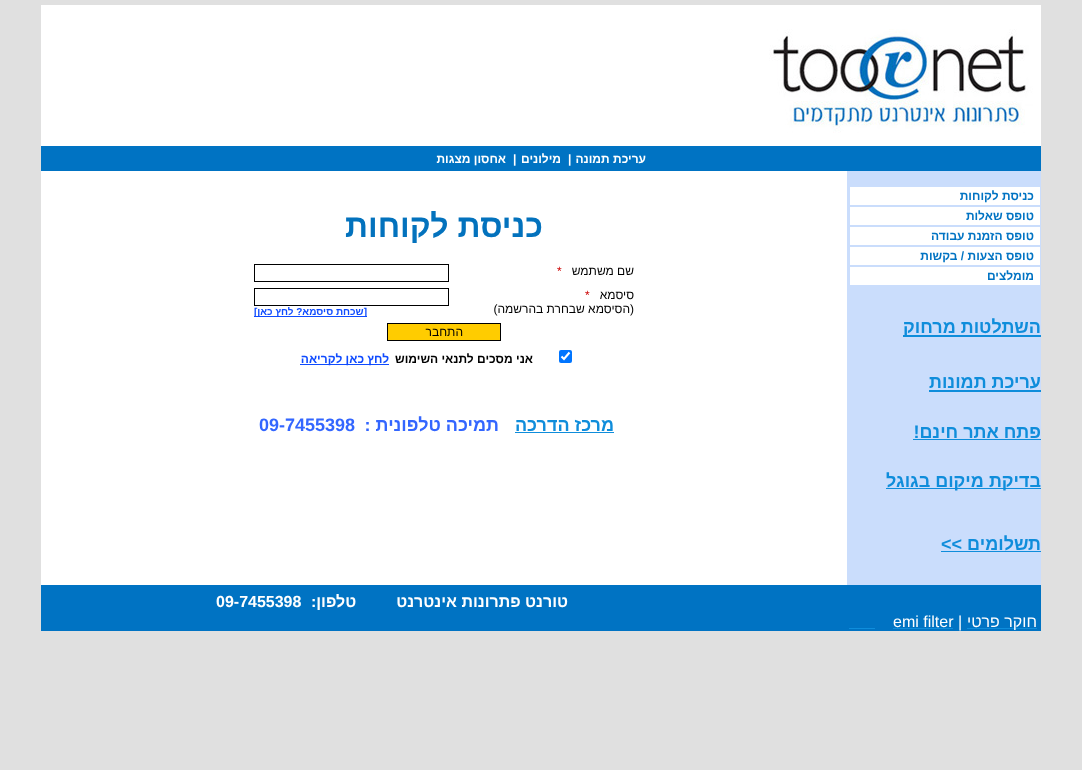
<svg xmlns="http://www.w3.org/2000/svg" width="1082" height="770">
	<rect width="100%" height="100%" fill="#E0E0E0" />
	<image x="41" y="5" width="1000" height="141" href="assets/img1.png" />
	<rect x="41" y="146" width="1000" height="25" fill="#0073C3" />
	<text x="646" y="163" font-family="Liberation Sans" font-size="12" font-weight="700" direction="rtl" fill="#FFFFFF">עריכת תמונה</text>
	<text x="568" y="163" font-family="Liberation Sans" font-size="12" font-weight="700" fill="#FFFFFF">|</text>
	<text x="561" y="163" font-family="Liberation Sans" font-size="12" font-weight="700" direction="rtl" fill="#FFFFFF">מילונים</text>
	<text x="513" y="163" font-family="Liberation Sans" font-size="12" font-weight="700" fill="#FFFFFF">|</text>
	<text x="506" y="163" font-family="Liberation Sans" font-size="12" font-weight="700" direction="rtl" fill="#FFFFFF">אחסון מצגות</text>
	<rect x="41" y="171" width="806" height="414" fill="#FFFFFF" />
	<rect x="847" y="171" width="194" height="414" fill="#CADDFC" />
	<rect x="850" y="187" width="190" height="18" fill="#FFFFFF" />
	<text x="1034" y="200" font-family="Liberation Sans" font-size="12" font-weight="700" direction="rtl" fill="#0073C3">כניסת לקוחות</text>
	<rect x="850" y="207" width="190" height="18" fill="#FFFFFF" />
	<text x="1034" y="220" font-family="Liberation Sans" font-size="12" font-weight="700" direction="rtl" fill="#0073C3">טופס שאלות</text>
	<rect x="850" y="227" width="190" height="18" fill="#FFFFFF" />
	<text x="1034" y="240" font-family="Liberation Sans" font-size="12" font-weight="700" direction="rtl" fill="#0073C3">טופס הזמנת עבודה</text>
	<rect x="850" y="247" width="190" height="18" fill="#FFFFFF" />
	<text x="1034" y="260" font-family="Liberation Sans" font-size="12" font-weight="700" direction="rtl" fill="#0073C3">טופס הצעות / בקשות</text>
	<rect x="850" y="267" width="190" height="18" fill="#FFFFFF" />
	<text x="1034" y="280" font-family="Liberation Sans" font-size="12" font-weight="700" direction="rtl" fill="#0073C3">מומלצים</text>
	<rect x="903" y="335" width="138" height="2" fill="#0F8DDB" />
	<g font-family="Liberation Sans" font-size="18" font-weight="700" direction="rtl" fill="#0F8DDB">
		<text x="1041" y="333">השתלטות מרחוק</text>
		<text x="1041" y="388">עריכת תמונות</text>
	</g>
	<rect x="929" y="390" width="112" height="2" fill="#0F8DDB" />
	<text x="1041" y="438" font-family="Liberation Sans" font-size="18" font-weight="700" direction="rtl" fill="#0F8DDB">פתח אתר חינם!</text>
	<rect x="913" y="439" width="128" height="1" fill="#0F8DDB" />
	<rect x="886" y="488" width="155" height="1" fill="#0F8DDB" />
	<g font-family="Liberation Sans" font-size="18" font-weight="700" direction="rtl" fill="#0F8DDB">
		<text x="1041" y="487">בדיקת מיקום בגוגל</text>
		<text x="1041" y="550">תשלומים &gt;&gt;</text>
	</g>
	<rect x="941" y="551" width="100" height="1" fill="#0F8DDB" />
	<text x="543" y="237" font-family="Liberation Sans" font-size="32" font-weight="700" direction="rtl" fill="#0372BD">כניסת לקוחות</text>
	<text x="634" y="275" font-family="Liberation Sans" font-size="12" direction="rtl" fill="#000000">שם משתמש</text>
	<text x="557" y="275" font-family="Liberation Sans" font-size="12" fill="#CC0000">*</text>
	<rect x="254.5" y="264.5" width="194" height="17" fill="none" stroke="#000000" />
	<text x="634" y="299" font-family="Liberation Sans" font-size="12" direction="rtl" fill="#000000">סיסמא</text>
	<text x="585" y="299" font-family="Liberation Sans" font-size="12" fill="#CC0000">*</text>
	<text x="634" y="313" font-family="Liberation Sans" font-size="12" direction="rtl" fill="#000000">(הסיסמא שבחרת בהרשמה)</text>
	<rect x="254.5" y="288.5" width="194" height="17" fill="none" stroke="#000000" />
	<rect x="254" y="316" width="113" height="1" fill="#0F4BFF" />
	<text x="367" y="315" font-family="Liberation Sans" font-size="10" font-weight="700" direction="rtl" fill="#0F4BFF">[שכחת סיסמא? לחץ כאן]</text>
	<rect x="387.5" y="323.5" width="113" height="17" fill="#FFCC00" stroke="#000000" />
	<text x="463" y="336" font-family="Liberation Sans" font-size="12" direction="rtl" fill="#000000">התחבר</text>
	<rect x="559" y="350" width="13" height="13" rx="2" fill="#0075FF" />
	<path d="M561.5 356.5L564 359L569.5 352.5" fill="none" stroke="#FFFFFF" stroke-width="2.1" />
	<text x="533" y="363" font-family="Liberation Sans" font-size="12" font-weight="700" direction="rtl" fill="#000000">אני מסכים לתנאי השימוש</text>
	<rect x="300" y="364" width="89" height="1" fill="#0F4BFF" />
	<text x="389" y="363" font-family="Liberation Sans" font-size="12" font-weight="700" direction="rtl" fill="#0F4BFF">לחץ כאן לקריאה</text>
	<text x="614" y="431" font-family="Liberation Sans" font-size="18" font-weight="700" direction="rtl" fill="#0F8DDB">מרכז הדרכה</text>
	<rect x="515" y="432" width="99" height="1" fill="#0F8DDB" />
	<text x="499" y="431" font-family="Liberation Sans" font-size="18" font-weight="700" direction="rtl" fill="#3366FF">תמיכה טלפונית :</text>
	<text x="259" y="431" font-family="Liberation Sans" font-size="18" font-weight="700" fill="#3366FF">09-7455398</text>
	<rect x="41" y="585" width="1000" height="46" fill="#0073C3" />
	<text x="568" y="607" font-family="Liberation Sans" font-size="16" font-weight="700" direction="rtl" fill="#FFFFFF" xml:space="preserve">טורנט פתרונות אינטרנט         טלפון:</text>
	<text x="216" y="607" font-family="Liberation Sans" font-size="16" font-weight="700" fill="#FFFFFF">09-7455398</text>
	<rect x="967" y="628" width="70" height="1" fill="#0F8DDB" />
	<text x="1037" y="627" font-family="Liberation Sans" font-size="16" direction="rtl" fill="#FFFFFF">חוקר פרטי</text>
	<g font-family="Liberation Sans" font-size="16" fill="#FFFFFF">
		<text x="958" y="627">|</text>
		<text x="893" y="627">emi filter</text>
	</g>
	<rect x="893" y="628" width="60" height="1" fill="#0F8DDB" />
	<rect x="849" y="628" width="26" height="1" fill="#0F8DDB" />
</svg>
